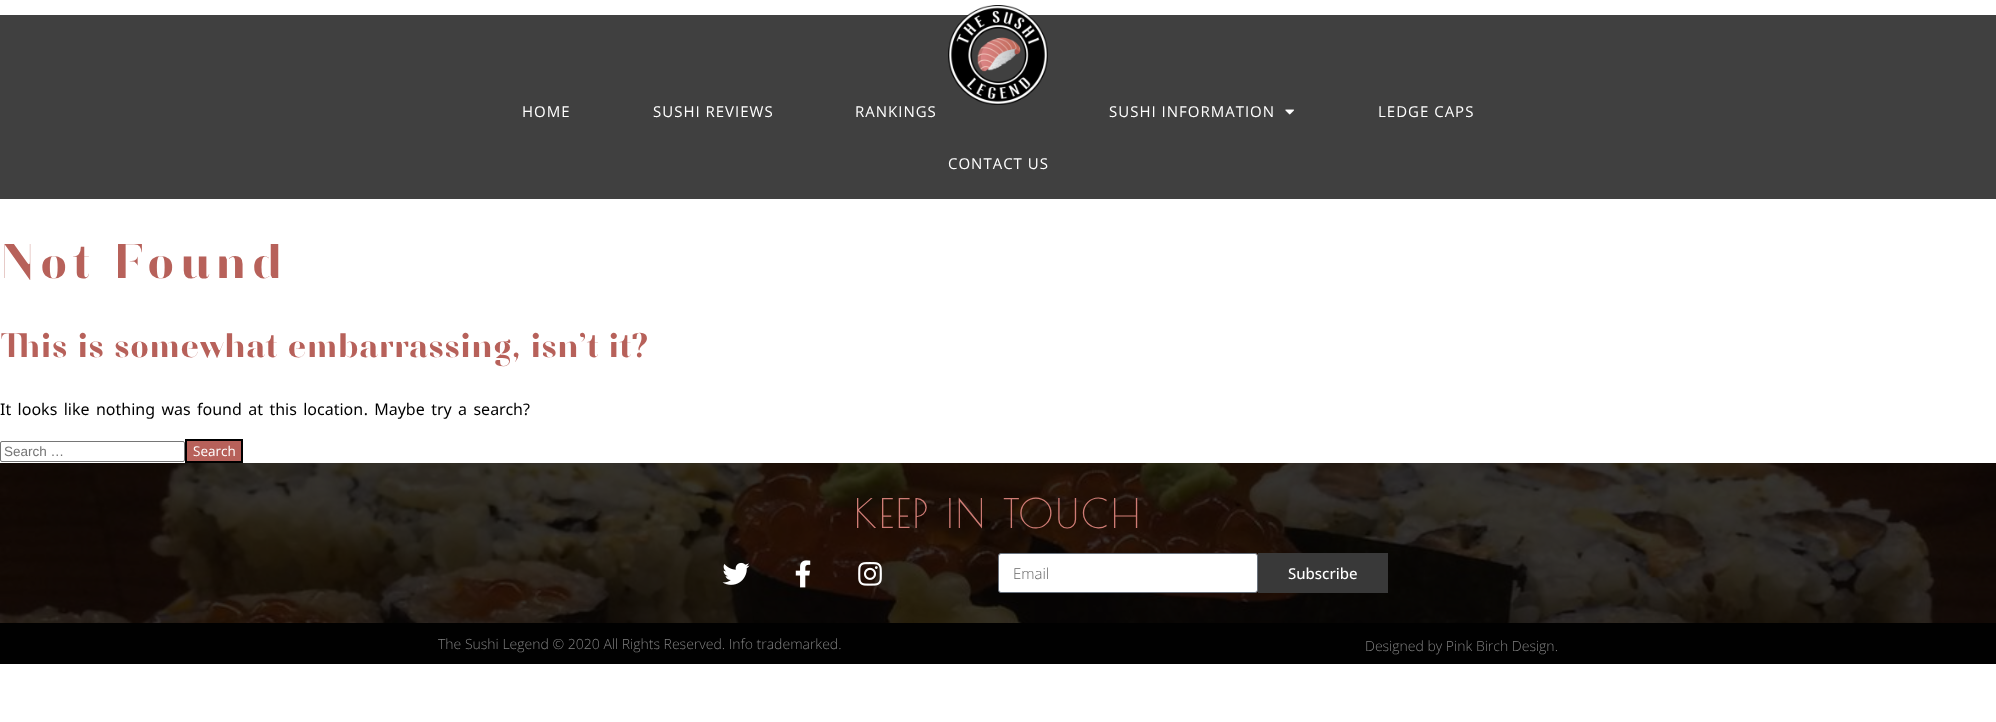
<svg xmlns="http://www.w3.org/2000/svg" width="1996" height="722">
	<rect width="100%" height="100%" fill="#FFFFFF" />
	<rect x="0" y="15" width="1996" height="184" fill="#404040" />
	<image x="948" y="5" width="100" height="100" href="assets/img1.png" />
	<g font-family="Open Sans" font-size="15" letter-spacing="1" fill="#FFFFFF">
		<text x="522" y="117">HOME</text>
		<text x="653" y="117">SUSHI REVIEWS</text>
		<text x="855" y="117">RANKINGS</text>
		<text x="1109" y="117">SUSHI INFORMATION</text>
	</g>
	<image x="1285" y="109" width="9" height="6" href="assets/img2.png" />
	<g font-family="Open Sans" font-size="15" letter-spacing="1" fill="#FFFFFF">
		<text x="1378" y="117">LEDGE CAPS</text>
		<text x="948" y="169">CONTACT US</text>
	</g>
	<text x="0" y="278" font-family="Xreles" font-size="50" font-weight="900" letter-spacing="5" fill="#B7615A">Not Found</text>
	<text x="0" y="357" font-family="Xreles" font-size="35" font-weight="900" fill="#B7615A">This is somewhat embarrassing, isn’t it?</text>
	<text x="0" y="415" font-family="Noto Sans Wancho" font-size="16" fill="#010101">It looks like nothing was found at this location. Maybe try a search?</text>
	<rect x="0.5" y="441.5" width="184" height="20" rx="1.5" fill="none" stroke="#767676" />
	<text x="4" y="456" font-family="Liberation Sans" font-size="13.5" fill="#757575">Search …</text>
	<rect x="186" y="440" width="56" height="22" fill="#B7615A" stroke="#000000" stroke-width="2" />
	<text x="193" y="456" font-family="Open Sans" font-size="13.5" fill="#FFFFFF">Search</text>
	<image x="0" y="463" width="1996" height="160" href="assets/img3.png" />
	<text x="854" y="528" font-family="Poiret One" font-size="40" letter-spacing="2" fill="#CF7C75">KEEP IN TOUCH</text>
	<image x="722" y="562" width="28" height="23" href="assets/img4.png" />
	<image x="795" y="560" width="16" height="28" href="assets/img5.png" />
	<image x="858" y="562" width="24" height="24" href="assets/img6.png" />
	<rect x="998.5" y="553.5" width="259" height="39" rx="2.5" fill="#FFFFFF" stroke="#69727D" />
	<text x="1013" y="579" font-family="Open Sans" font-size="15" font-weight="300" fill="#676767">Email</text>
	<rect x="1258" y="553" width="130" height="40" fill="#393939" />
	<text x="1288" y="579" font-family="Open Sans" font-size="15" font-weight="500" fill="#FFFFFF">Subscribe</text>
	<rect x="0" y="623" width="1996" height="41" fill="#010101" />
	<g font-family="Open Sans" font-size="14" font-weight="300" fill="#818181">
		<text x="438" y="649">The Sushi Legend © 2020 All Rights Reserved. Info trademarked.</text>
		<text x="1365" y="651">Designed by Pink Birch Design.</text>
	</g>
</svg>
